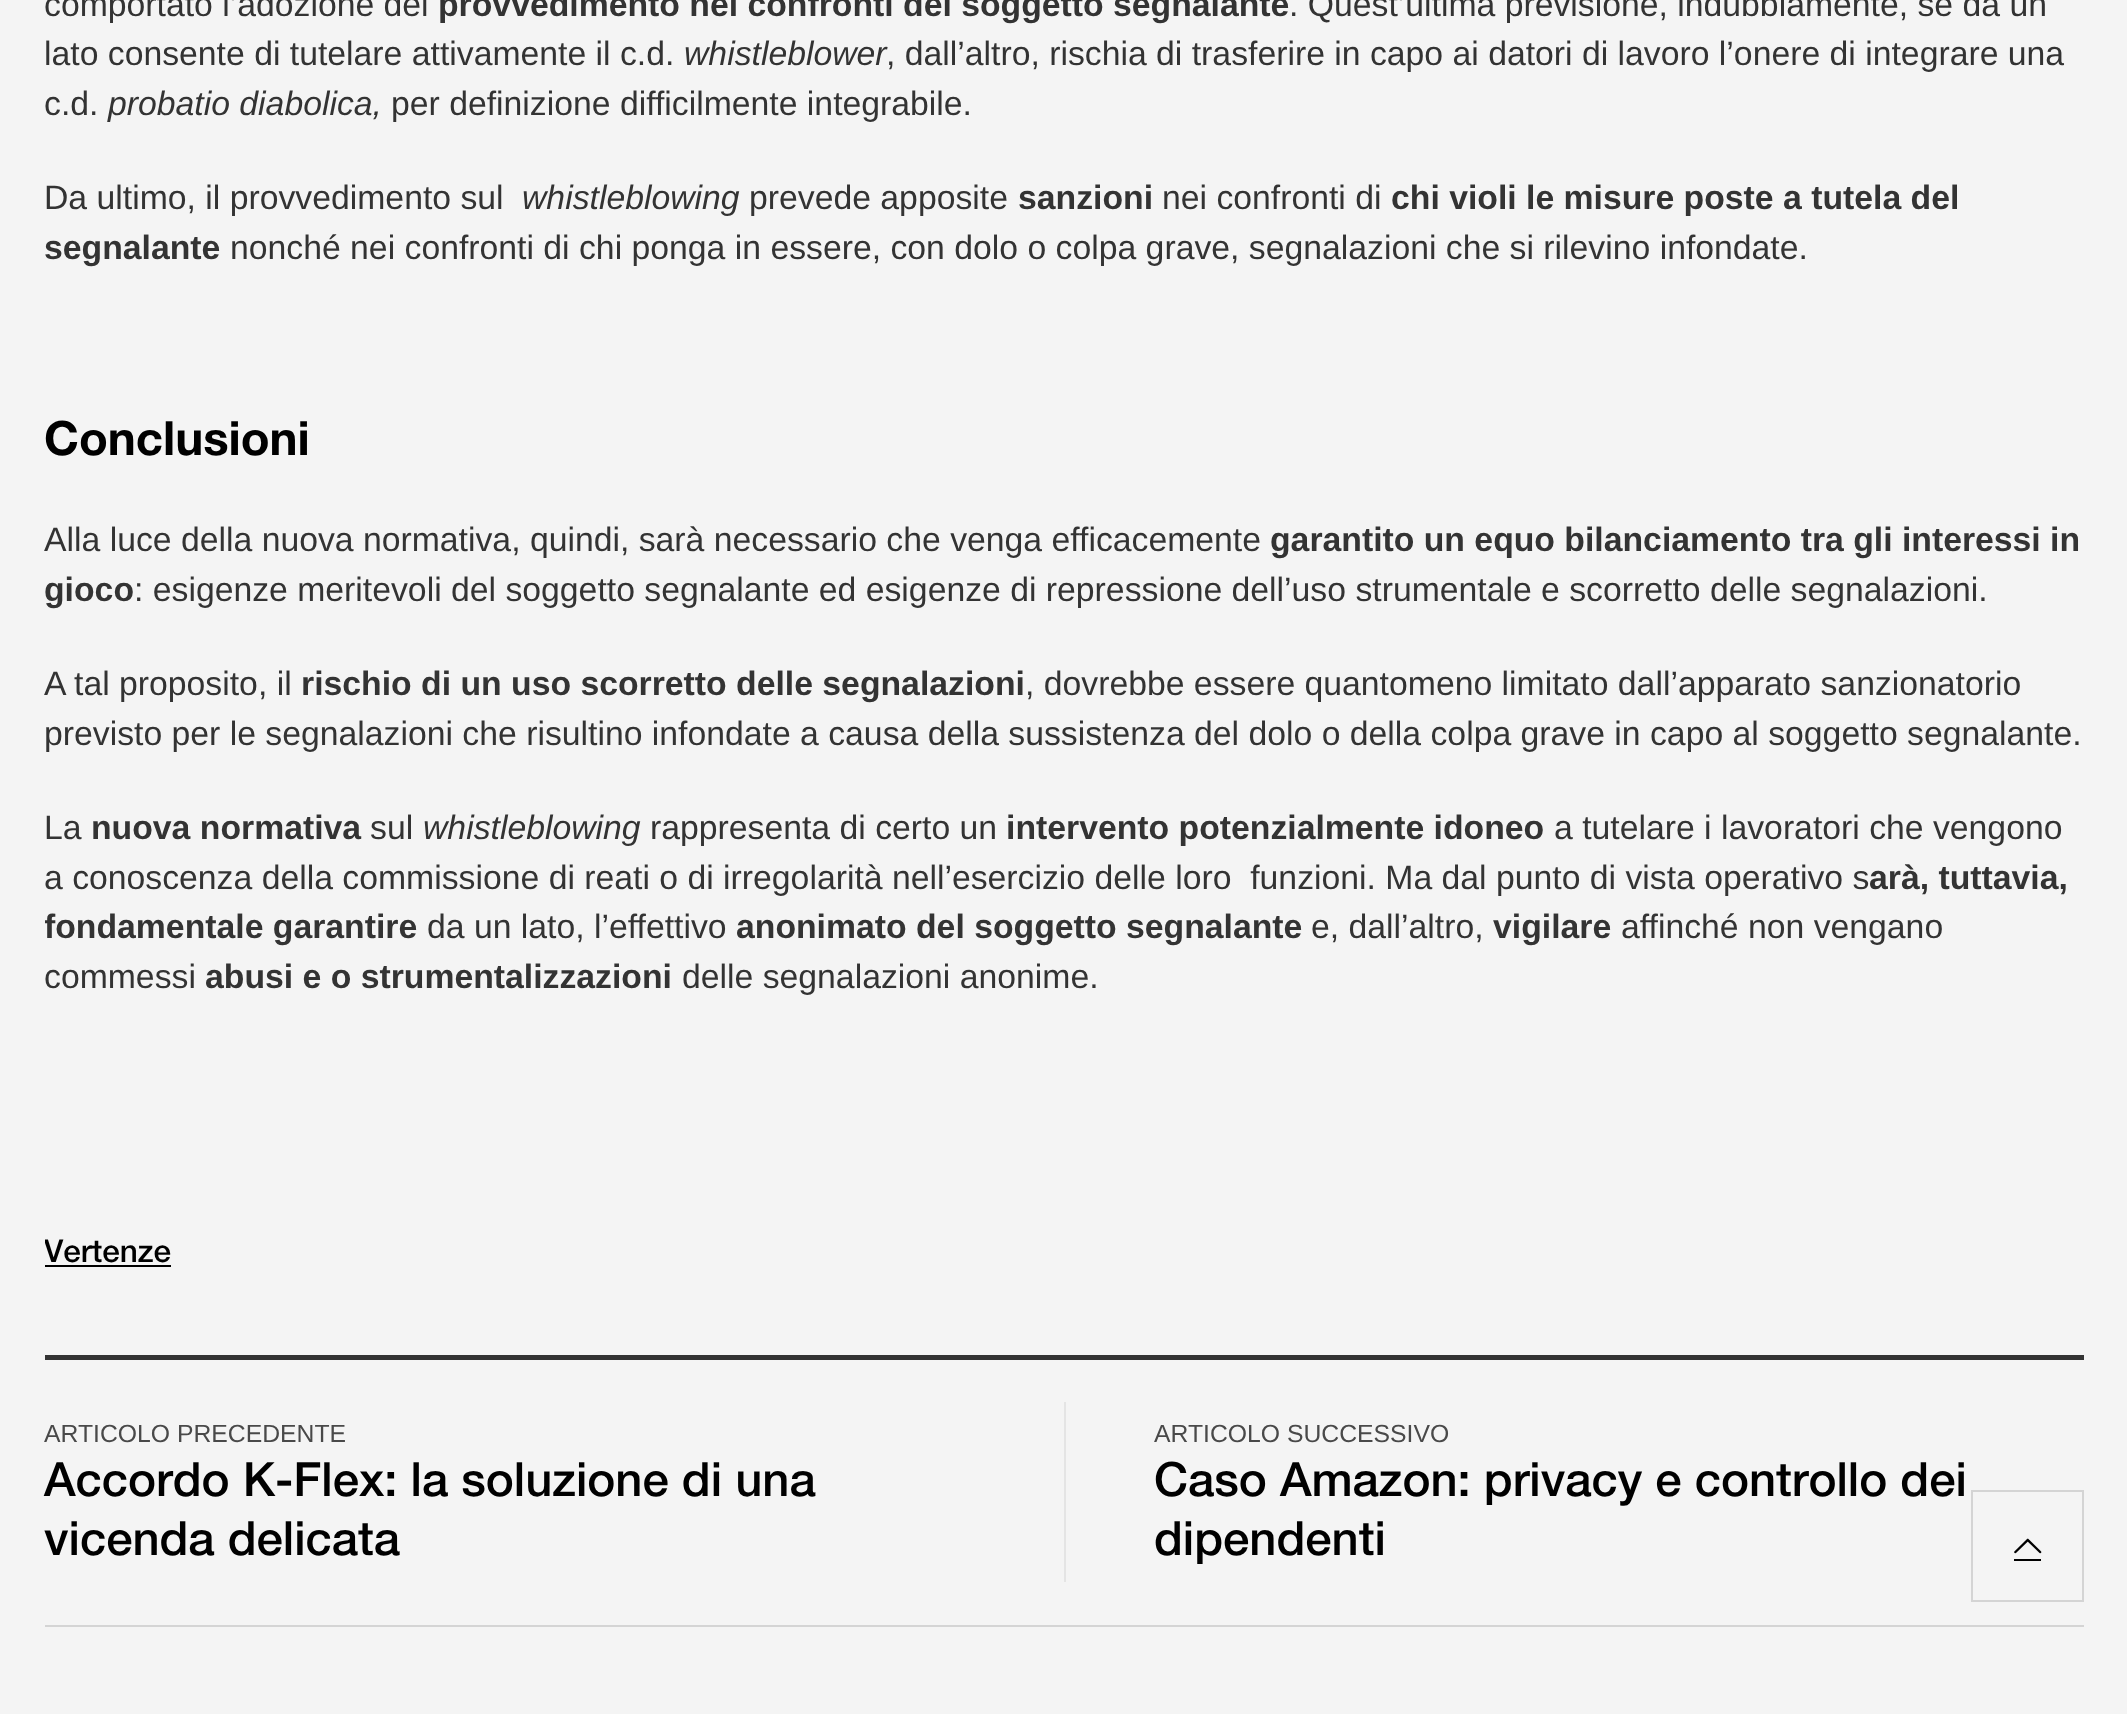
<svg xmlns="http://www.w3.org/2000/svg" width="2127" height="1714">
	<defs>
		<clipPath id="clip1"><rect x="45" y="0" width="2039" height="1148" /></clipPath>
		<clipPath id="clip2"><rect x="45" y="0" width="2039" height="1276" /></clipPath>
	</defs>
	<rect width="100%" height="100%" fill="#F4F4F4" />
	<text x="44" y="16" font-family="Liberation Sans" font-size="33.75" fill="#333333">comportato l’adozione del</text>
	<text x="438" y="16" font-family="Liberation Sans" font-size="33.75" font-weight="700" fill="#333333">provvedimento nei confronti del soggetto segnalante</text>
	<g font-family="Liberation Sans" font-size="33.75" fill="#333333">
		<text x="1289" y="16">. Quest’ultima previsione, indubbiamente, se da un</text>
		<text x="44" y="65">lato consente di tutelare attivamente il c.d.</text>
	</g>
	<text x="684" y="65" font-family="Liberation Sans" font-size="33.75" font-style="italic" fill="#333333">whistleblower</text>
	<g font-family="Liberation Sans" font-size="33.75" fill="#333333">
		<text x="886" y="65">, dall’altro, rischia di trasferire in capo ai datori di lavoro l’onere di integrare una</text>
		<text x="44" y="115">c.d.</text>
	</g>
	<text x="108" y="115" font-family="Liberation Sans" font-size="33.75" font-style="italic" fill="#333333">probatio diabolica,</text>
	<g font-family="Liberation Sans" font-size="33.75" fill="#333333">
		<text x="391" y="115">per definizione difficilmente integrabile.</text>
		<text x="44" y="209">Da ultimo, il provvedimento sul</text>
	</g>
	<text x="522" y="209" font-family="Liberation Sans" font-size="33.75" font-style="italic" fill="#333333">whistleblowing</text>
	<text x="749" y="209" font-family="Liberation Sans" font-size="33.75" fill="#333333">prevede apposite</text>
	<text x="1018" y="209" font-family="Liberation Sans" font-size="33.75" font-weight="700" fill="#333333">sanzioni</text>
	<text x="1162" y="209" font-family="Liberation Sans" font-size="33.75" fill="#333333">nei confronti di</text>
	<g font-family="Liberation Sans" font-size="33.75" font-weight="700" fill="#333333">
		<text x="1391" y="209">chi violi le misure poste a tutela del</text>
		<text x="44" y="259">segnalante</text>
	</g>
	<text x="230" y="259" font-family="Liberation Sans" font-size="33.75" fill="#333333">nonché nei confronti di chi ponga in essere, con dolo o colpa grave, segnalazioni che si rilevino infondate.</text>
	<text x="44" y="455" font-family="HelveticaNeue" font-size="47.25" font-weight="700" fill="#000000">Conclusioni</text>
	<text x="44" y="551" font-family="Liberation Sans" font-size="33.75" fill="#333333">Alla luce della nuova normativa, quindi, sarà necessario che venga efficacemente</text>
	<g font-family="Liberation Sans" font-size="33.75" font-weight="700" fill="#333333">
		<text x="1270" y="551">garantito un equo bilanciamento tra gli interessi in</text>
		<text x="44" y="601">gioco</text>
	</g>
	<g font-family="Liberation Sans" font-size="33.75" fill="#333333">
		<text x="134" y="601">: esigenze meritevoli del soggetto segnalante ed esigenze di repressione dell’uso strumentale e scorretto delle segnalazioni.</text>
		<text x="44" y="695">A tal proposito, il</text>
	</g>
	<text x="301" y="695" font-family="Liberation Sans" font-size="33.75" font-weight="700" fill="#333333">rischio di un uso scorretto delle segnalazioni</text>
	<g font-family="Liberation Sans" font-size="33.75" fill="#333333">
		<text x="1025" y="695">, dovrebbe essere quantomeno limitato dall’apparato sanzionatorio</text>
		<text x="44" y="745">previsto per le segnalazioni che risultino infondate a causa della sussistenza del dolo o della colpa grave in capo al soggetto segnalante.</text>
		<text x="44" y="839">La</text>
	</g>
	<text x="91" y="839" font-family="Liberation Sans" font-size="33.75" font-weight="700" fill="#333333">nuova normativa</text>
	<text x="370" y="839" font-family="Liberation Sans" font-size="33.75" fill="#333333">sul</text>
	<text x="423" y="839" font-family="Liberation Sans" font-size="33.75" font-style="italic" fill="#333333">whistleblowing</text>
	<text x="650" y="839" font-family="Liberation Sans" font-size="33.75" fill="#333333">rappresenta di certo un</text>
	<text x="1006" y="839" font-family="Liberation Sans" font-size="33.75" font-weight="700" fill="#333333">intervento potenzialmente idoneo</text>
	<g font-family="Liberation Sans" font-size="33.75" fill="#333333">
		<text x="1554" y="839">a tutelare i lavoratori che vengono</text>
		<text x="44" y="889" xml:space="preserve">a conoscenza della commissione di reati o di irregolarità nell’esercizio delle loro  funzioni. Ma dal punto di vista operativo s</text>
	</g>
	<text x="1869" y="889" font-family="Liberation Sans" font-size="33.75" font-weight="700" fill="#333333">arà, tuttavia,</text>
	<g clip-path="url(#clip1)">
		<text x="44" y="938" font-family="Liberation Sans" font-size="33.75" font-weight="700" fill="#333333">fondamentale garantire</text>
	</g>
	<text x="427" y="938" font-family="Liberation Sans" font-size="33.75" fill="#333333">da un lato, l’effettivo</text>
	<text x="736" y="938" font-family="Liberation Sans" font-size="33.75" font-weight="700" fill="#333333">anonimato del soggetto segnalante</text>
	<text x="1311" y="938" font-family="Liberation Sans" font-size="33.75" fill="#333333">e, dall’altro,</text>
	<text x="1493" y="938" font-family="Liberation Sans" font-size="33.75" font-weight="700" fill="#333333">vigilare</text>
	<g font-family="Liberation Sans" font-size="33.75" fill="#333333">
		<text x="1621" y="938">affinché non vengano</text>
		<text x="44" y="988">commessi</text>
	</g>
	<text x="205" y="988" font-family="Liberation Sans" font-size="33.75" font-weight="700" fill="#333333">abusi e o strumentalizzazioni</text>
	<text x="682" y="988" font-family="Liberation Sans" font-size="33.75" fill="#333333">delle segnalazioni anonime.</text>
	<g clip-path="url(#clip2)">
		<text x="44" y="1262" font-family="HelveticaNeue" font-size="31.5" font-weight="500" fill="#000000">Vertenze</text>
	</g>
	<rect x="45" y="1265" width="126" height="2" fill="#000000" />
	<rect x="45" y="1355" width="2039" height="5" fill="#333333" />
	<text x="44" y="1442" font-family="Liberation Sans" font-size="24.75" fill="#494949">ARTICOLO PRECEDENTE</text>
	<g font-family="HelveticaNeue" font-size="47.25" font-weight="500" fill="#000000">
		<text x="44" y="1496">Accordo K-Flex: la soluzione di una</text>
		<text x="44" y="1555">vicenda delicata</text>
	</g>
	<rect x="1064" y="1402" width="2" height="180" fill="#E4E4E4" />
	<text x="1154" y="1442" font-family="Liberation Sans" font-size="24.75" fill="#494949">ARTICOLO SUCCESSIVO</text>
	<g font-family="HelveticaNeue" font-size="47.25" font-weight="500" fill="#000000">
		<text x="1154" y="1496">Caso Amazon: privacy e controllo dei</text>
		<text x="1154" y="1555">dipendenti</text>
	</g>
	<rect x="45" y="1625" width="2039" height="2" fill="#D4D4D4" />
	<rect x="1972" y="1491" width="111" height="110" fill="none" stroke="#D4D4D4" stroke-width="2" />
	<rect x="2014" y="1559" width="27" height="2" fill="#000000" />
	<image x="2014" y="1538" width="28" height="16" href="assets/img1.png" />
</svg>
